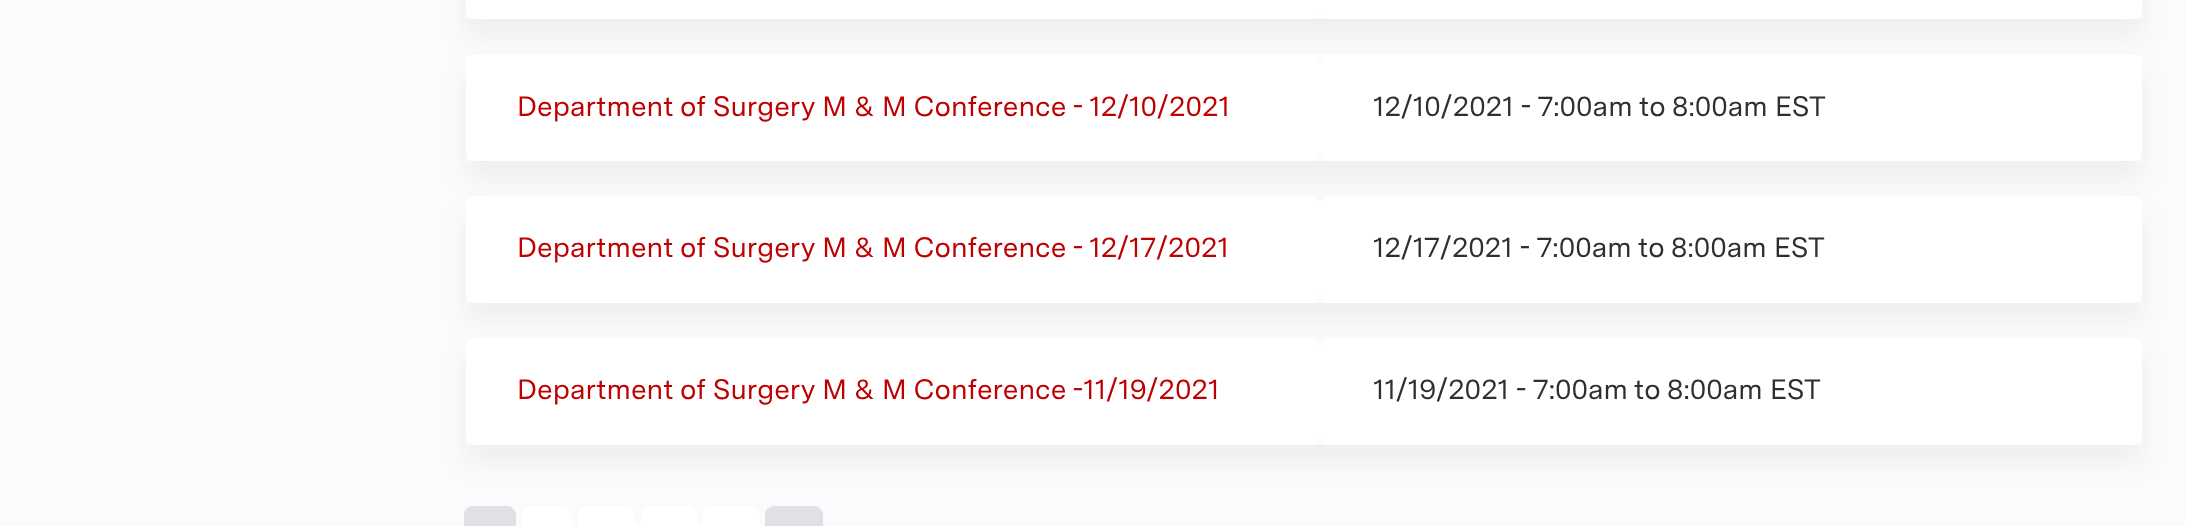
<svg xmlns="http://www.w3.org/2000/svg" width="2185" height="526">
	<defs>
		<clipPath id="clip1"><path d="M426 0H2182V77H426ZM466-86H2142V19H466Z" clip-rule="evenodd" /></clipPath>
		<clipPath id="clip2"><path d="M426 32H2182V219H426ZM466 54H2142V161H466Z" clip-rule="evenodd" /></clipPath>
		<clipPath id="clip3"><path d="M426 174H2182V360H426ZM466 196H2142V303H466Z" clip-rule="evenodd" /></clipPath>
		<clipPath id="clip4"><path d="M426 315H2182V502H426ZM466 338H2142V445H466Z" clip-rule="evenodd" /></clipPath>
	</defs>
	<rect width="100%" height="100%" fill="#FBFBFD" />
	<g clip-path="url(#clip1)">
		<rect x="466" y="-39" width="1676" height="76" fill="#000000" fill-opacity="0.05" filter="blur(13px)" />
	</g>
	<rect x="466" y="-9" width="854" height="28" rx="9" fill="#FFFFFF" />
	<rect x="1320" y="-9" width="822" height="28" rx="9" fill="#FFFFFF" />
	<g clip-path="url(#clip2)">
		<rect x="466" y="72" width="1676" height="107" fill="#000000" fill-opacity="0.05" filter="blur(13px)" />
	</g>
	<rect x="466" y="54" width="854" height="107" rx="9" fill="#FFFFFF" />
	<text x="517" y="116" font-family="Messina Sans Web" font-size="28" fill="#BE0000">Department of Surgery M &amp; M Conference - 12/10/2021</text>
	<rect x="1320" y="54" width="822" height="107" rx="9" fill="#FFFFFF" />
	<g font-family="Messina Sans Web" font-size="28" fill="#2F2F2F">
		<text x="1373" y="116">12/10/2021 - 7:00am</text>
		<text x="1639" y="116">to 8:00am EST</text>
	</g>
	<g clip-path="url(#clip3)">
		<rect x="466" y="214" width="1676" height="106" fill="#000000" fill-opacity="0.05" filter="blur(13px)" />
	</g>
	<rect x="466" y="196" width="854" height="107" rx="9" fill="#FFFFFF" />
	<text x="517" y="257" font-family="Messina Sans Web" font-size="28" fill="#BE0000">Department of Surgery M &amp; M Conference - 12/17/2021</text>
	<rect x="1320" y="196" width="822" height="107" rx="9" fill="#FFFFFF" />
	<g font-family="Messina Sans Web" font-size="28" fill="#2F2F2F">
		<text x="1373" y="257">12/17/2021 - 7:00am</text>
		<text x="1638" y="257">to 8:00am EST</text>
	</g>
	<g clip-path="url(#clip4)">
		<rect x="466" y="355" width="1676" height="107" fill="#000000" fill-opacity="0.05" filter="blur(13px)" />
	</g>
	<rect x="466" y="338" width="854" height="107" rx="9" fill="#FFFFFF" />
	<text x="517" y="399" font-family="Messina Sans Web" font-size="28" fill="#BE0000">Department of Surgery M &amp; M Conference -11/19/2021</text>
	<rect x="1320" y="338" width="822" height="107" rx="9" fill="#FFFFFF" />
	<g font-family="Messina Sans Web" font-size="28" fill="#2F2F2F">
		<text x="1373" y="399">11/19/2021 - 7:00am</text>
		<text x="1634" y="399">to 8:00am EST</text>
	</g>
	<rect x="464" y="506" width="52" height="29" rx="9" fill="#DFE1E5" />
	<rect x="522" y="506" width="50" height="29" rx="9" fill="#FFFFFF" />
	<rect x="578" y="506" width="57" height="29" rx="9" fill="#FFFFFF" />
	<rect x="641" y="506" width="56" height="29" rx="9" fill="#FFFFFF" />
	<rect x="702" y="506" width="58" height="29" rx="9" fill="#FFFFFF" />
	<rect x="765" y="506" width="58" height="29" rx="9" fill="#DFE1E5" />
</svg>
